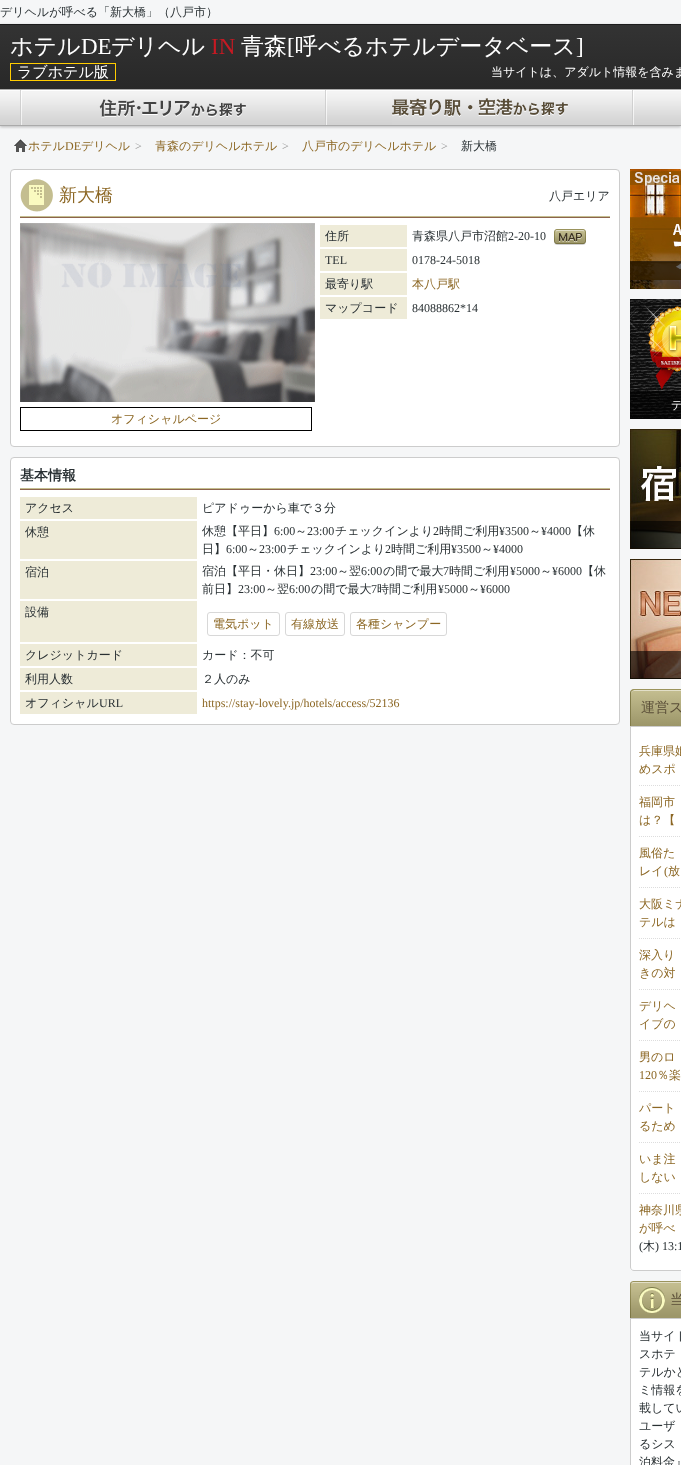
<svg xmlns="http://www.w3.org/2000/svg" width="681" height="1465">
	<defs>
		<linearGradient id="g1" gradientUnits="userSpaceOnUse" x1="341" y1="25" x2="341" y2="126"><stop offset="0" stop-color="#333333" /><stop offset="1" stop-color="#222222" /></linearGradient>
		<clipPath id="clip1"><path d="M634 689H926C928 689 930 691 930 693V727H630V693C630 691 632 689 634 689Z" /></clipPath>
		<linearGradient id="g2" gradientUnits="userSpaceOnUse" x1="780" y1="654" x2="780" y2="690"><stop offset="0" stop-color="#C4BE90" /><stop offset="1" stop-color="#9C9669" /></linearGradient>
		<linearGradient id="g3" gradientUnits="userSpaceOnUse" x1="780" y1="690" x2="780" y2="726"><stop offset="0" stop-color="#C4BE90" /><stop offset="1" stop-color="#9C9669" /></linearGradient>
	</defs>
	<rect width="100%" height="100%" fill="#F5F6F7" />
	<text x="0" y="16" font-family="WenQuanYi Zen Hei" font-size="12" font-weight="500" fill="#293033">デリヘルが呼べる「新大橋」（八戸市）</text>
	<rect x="0" y="25" width="681" height="102" fill="#000000" fill-opacity="0.25" filter="blur(1.5px)" />
	<rect x="0" y="25" width="681" height="64" fill="url(#g1)" />
	<rect x="0" y="24" width="681" height="1" fill="#1C1C1C" />
	<text x="10" y="54" font-family="WenQuanYi Zen Hei" font-size="23" font-weight="500" fill="#FFFFFF">ホテル</text>
	<text x="81" y="54" font-family="Liberation Serif" font-size="23" fill="#FFFFFF">DE</text>
	<text x="111" y="54" font-family="WenQuanYi Zen Hei" font-size="23" font-weight="500" fill="#FFFFFF">デリヘル</text>
	<text x="211" y="54" font-family="Liberation Serif" font-size="23" fill="#C51A23">IN</text>
	<text x="241" y="54" font-family="WenQuanYi Zen Hei" font-size="23" font-weight="500" fill="#FFFFFF">青森</text>
	<text x="287" y="54" font-family="Liberation Serif" font-size="23" fill="#FFFFFF">[</text>
	<text x="295" y="54" font-family="WenQuanYi Zen Hei" font-size="23" font-weight="500" fill="#FFFFFF">呼べるホテルデータベース</text>
	<text x="576" y="54" font-family="Liberation Serif" font-size="23" fill="#FFFFFF">]</text>
	<rect x="10.5" y="63.5" width="105" height="17" fill="none" stroke="#FFCC00" />
	<text x="17" y="77" font-family="WenQuanYi Zen Hei" font-size="15" font-weight="500" fill="#FFFFFF">ラブホテル版</text>
	<text x="491" y="76" font-family="WenQuanYi Zen Hei" font-size="12" font-weight="500" fill="#FFFFFF">当サイトは、アダルト情報を含みま</text>
	<image x="0" y="89" width="681" height="37" href="assets/img1.png" />
	<image x="20" y="90" width="307" height="35" href="assets/img2.png" />
	<image x="392" y="90" width="242" height="35" href="assets/img3.png" />
	<image x="14" y="139" width="13" height="13" href="assets/img4.png" />
	<text x="28" y="150" font-family="WenQuanYi Zen Hei" font-size="12" font-weight="500" fill="#8C6724">ホテル</text>
	<text x="65" y="150" font-family="Liberation Serif" font-size="12" fill="#8C6724">DE</text>
	<text x="81" y="150" font-family="WenQuanYi Zen Hei" font-size="12" font-weight="500" fill="#8C6724">デリヘル</text>
	<text x="135" y="150" font-family="Liberation Serif" font-size="12" fill="#999999">&gt;</text>
	<text x="155" y="150" font-family="WenQuanYi Zen Hei" font-size="12" font-weight="500" fill="#8C6724">青森のデリヘルホテル</text>
	<text x="282" y="150" font-family="Liberation Serif" font-size="12" fill="#999999">&gt;</text>
	<text x="302" y="150" font-family="WenQuanYi Zen Hei" font-size="12" font-weight="500" fill="#8C6724">八戸市のデリヘルホテル</text>
	<text x="441" y="150" font-family="Liberation Serif" font-size="12" fill="#999999">&gt;</text>
	<text x="461" y="150" font-family="WenQuanYi Zen Hei" font-size="12" font-weight="500" fill="#293033">新大橋</text>
	<rect x="10.5" y="169.5" width="609" height="277" rx="3.5" fill="#FFFFFF" stroke="#CCCCCC" />
	<image x="20" y="216" width="590" height="2" href="assets/img5.png" />
	<image x="20" y="179" width="33" height="33" href="assets/img6.png" />
	<text x="59" y="201" font-family="WenQuanYi Zen Hei" font-size="18" font-weight="500" fill="#8C6724">新大橋</text>
	<text x="549" y="200" font-family="WenQuanYi Zen Hei" font-size="12" font-weight="500" fill="#293033">八戸エリア</text>
	<rect x="320" y="225" width="87" height="22" fill="#EEEBD8" />
	<g font-family="WenQuanYi Zen Hei" font-size="12" font-weight="500" fill="#293033">
		<text x="325" y="240">住所</text>
		<text x="412" y="240">青森県八戸市沼館</text>
	</g>
	<text x="508" y="240" font-family="Liberation Serif" font-size="12" fill="#293033">2-20-10</text>
	<image x="554" y="229" width="32" height="16" href="assets/img7.png" />
	<rect x="320" y="249" width="87" height="22" fill="#EEEBD8" />
	<g font-family="Liberation Serif" font-size="12" fill="#293033">
		<text x="325" y="264">TEL</text>
		<text x="412" y="264">0178-24-5018</text>
	</g>
	<rect x="320" y="273" width="87" height="22" fill="#EEEBD8" />
	<text x="325" y="288" font-family="WenQuanYi Zen Hei" font-size="12" font-weight="500" fill="#293033">最寄り駅</text>
	<text x="412" y="288" font-family="WenQuanYi Zen Hei" font-size="12" font-weight="500" fill="#8C6724">本八戸駅</text>
	<rect x="320" y="297" width="87" height="22" fill="#EEEBD8" />
	<text x="325" y="312" font-family="WenQuanYi Zen Hei" font-size="12" font-weight="500" fill="#293033">マップコード</text>
	<text x="412" y="312" font-family="Liberation Serif" font-size="12" fill="#293033">84088862*14</text>
	<image x="20" y="223" width="295" height="179" href="assets/img8.png" />
	<rect x="20.5" y="407.5" width="291" height="23" fill="none" stroke="#000000" />
	<text x="111" y="423" font-family="WenQuanYi Zen Hei" font-size="12" font-weight="500" fill="#8C6724">オフィシャルページ</text>
	<rect x="10.5" y="457.5" width="609" height="267" rx="3.5" fill="#FFFFFF" stroke="#CCCCCC" />
	<image x="20" y="488" width="590" height="2" href="assets/img5.png" />
	<text x="20" y="480" font-family="WenQuanYi Zen Hei" font-size="14" font-weight="700" fill="#293033">基本情報</text>
	<rect x="20" y="497" width="177" height="22" fill="#EEEBD8" />
	<g font-family="WenQuanYi Zen Hei" font-size="12" font-weight="500" fill="#293033">
		<text x="25" y="512">アクセス</text>
		<text x="202" y="512">ピアドゥーから車で３分</text>
	</g>
	<rect x="20" y="521" width="177" height="38" fill="#EEEBD8" />
	<g font-family="WenQuanYi Zen Hei" font-size="12" font-weight="500" fill="#293033">
		<text x="25" y="536">休憩</text>
		<text x="202" y="535">休憩【平日】</text>
	</g>
	<text x="274" y="535" font-family="Liberation Serif" font-size="12" fill="#293033">6:00</text>
	<text x="295" y="535" font-family="WenQuanYi Zen Hei" font-size="12" font-weight="500" fill="#293033">～</text>
	<text x="307" y="535" font-family="Liberation Serif" font-size="12" fill="#293033">23:00</text>
	<text x="335" y="535" font-family="WenQuanYi Zen Hei" font-size="12" font-weight="500" fill="#293033">チェックインより</text>
	<text x="433" y="535" font-family="Liberation Serif" font-size="12" fill="#293033">2</text>
	<text x="439" y="535" font-family="WenQuanYi Zen Hei" font-size="12" font-weight="500" fill="#293033">時間ご利用</text>
	<text x="499" y="535" font-family="Liberation Serif" font-size="12" fill="#293033">¥3500</text>
	<text x="529" y="535" font-family="WenQuanYi Zen Hei" font-size="12" font-weight="500" fill="#293033">～</text>
	<text x="541" y="535" font-family="Liberation Serif" font-size="12" fill="#293033">¥4000</text>
	<g font-family="WenQuanYi Zen Hei" font-size="12" font-weight="500" fill="#293033">
		<text x="571" y="535">【休</text>
		<text x="202" y="553">日】</text>
	</g>
	<text x="226" y="553" font-family="Liberation Serif" font-size="12" fill="#293033">6:00</text>
	<text x="247" y="553" font-family="WenQuanYi Zen Hei" font-size="12" font-weight="500" fill="#293033">～</text>
	<text x="259" y="553" font-family="Liberation Serif" font-size="12" fill="#293033">23:00</text>
	<text x="287" y="553" font-family="WenQuanYi Zen Hei" font-size="12" font-weight="500" fill="#293033">チェックインより</text>
	<text x="385" y="553" font-family="Liberation Serif" font-size="12" fill="#293033">2</text>
	<text x="391" y="553" font-family="WenQuanYi Zen Hei" font-size="12" font-weight="500" fill="#293033">時間ご利用</text>
	<text x="451" y="553" font-family="Liberation Serif" font-size="12" fill="#293033">¥3500</text>
	<text x="481" y="553" font-family="WenQuanYi Zen Hei" font-size="12" font-weight="500" fill="#293033">～</text>
	<text x="493" y="553" font-family="Liberation Serif" font-size="12" fill="#293033">¥4000</text>
	<rect x="20" y="561" width="177" height="38" fill="#EEEBD8" />
	<g font-family="WenQuanYi Zen Hei" font-size="12" font-weight="500" fill="#293033">
		<text x="25" y="576">宿泊</text>
		<text x="202" y="575">宿泊【平日・休日】</text>
	</g>
	<text x="310" y="575" font-family="Liberation Serif" font-size="12" fill="#293033">23:00</text>
	<text x="337" y="575" font-family="WenQuanYi Zen Hei" font-size="12" font-weight="500" fill="#293033">～翌</text>
	<text x="361" y="575" font-family="Liberation Serif" font-size="12" fill="#293033">6:00</text>
	<text x="383" y="575" font-family="WenQuanYi Zen Hei" font-size="12" font-weight="500" fill="#293033">の間で最大</text>
	<text x="443" y="575" font-family="Liberation Serif" font-size="12" fill="#293033">7</text>
	<text x="449" y="575" font-family="WenQuanYi Zen Hei" font-size="12" font-weight="500" fill="#293033">時間ご利用</text>
	<text x="510" y="575" font-family="Liberation Serif" font-size="12" fill="#293033">¥5000</text>
	<text x="540" y="575" font-family="WenQuanYi Zen Hei" font-size="12" font-weight="500" fill="#293033">～</text>
	<text x="552" y="575" font-family="Liberation Serif" font-size="12" fill="#293033">¥6000</text>
	<g font-family="WenQuanYi Zen Hei" font-size="12" font-weight="500" fill="#293033">
		<text x="582" y="575">【休</text>
		<text x="202" y="593">前日】</text>
	</g>
	<text x="238" y="593" font-family="Liberation Serif" font-size="12" fill="#293033">23:00</text>
	<text x="265" y="593" font-family="WenQuanYi Zen Hei" font-size="12" font-weight="500" fill="#293033">～翌</text>
	<text x="289" y="593" font-family="Liberation Serif" font-size="12" fill="#293033">6:00</text>
	<text x="311" y="593" font-family="WenQuanYi Zen Hei" font-size="12" font-weight="500" fill="#293033">の間で最大</text>
	<text x="371" y="593" font-family="Liberation Serif" font-size="12" fill="#293033">7</text>
	<text x="377" y="593" font-family="WenQuanYi Zen Hei" font-size="12" font-weight="500" fill="#293033">時間ご利用</text>
	<text x="438" y="593" font-family="Liberation Serif" font-size="12" fill="#293033">¥5000</text>
	<text x="468" y="593" font-family="WenQuanYi Zen Hei" font-size="12" font-weight="500" fill="#293033">～</text>
	<text x="480" y="593" font-family="Liberation Serif" font-size="12" fill="#293033">¥6000</text>
	<rect x="20" y="601" width="177" height="41" fill="#EEEBD8" />
	<text x="25" y="616" font-family="WenQuanYi Zen Hei" font-size="12" font-weight="500" fill="#293033">設備</text>
	<rect x="207.5" y="612.5" width="72" height="23" rx="2.5" fill="none" stroke="#D8D8D8" />
	<text x="213" y="628" font-family="WenQuanYi Zen Hei" font-size="12" font-weight="500" fill="#8C6724">電気ポット</text>
	<rect x="285.5" y="612.5" width="59" height="23" rx="2.5" fill="none" stroke="#D8D8D8" />
	<text x="291" y="628" font-family="WenQuanYi Zen Hei" font-size="12" font-weight="500" fill="#8C6724">有線放送</text>
	<rect x="350.5" y="612.5" width="96" height="23" rx="2.5" fill="none" stroke="#D8D8D8" />
	<text x="356" y="628" font-family="WenQuanYi Zen Hei" font-size="12" font-weight="500" fill="#8C6724">各種シャンプー</text>
	<rect x="20" y="644" width="177" height="22" fill="#EEEBD8" />
	<g font-family="WenQuanYi Zen Hei" font-size="12" font-weight="500" fill="#293033">
		<text x="25" y="659">クレジットカード</text>
		<text x="202" y="659">カード：不可</text>
	</g>
	<rect x="20" y="668" width="177" height="22" fill="#EEEBD8" />
	<g font-family="WenQuanYi Zen Hei" font-size="12" font-weight="500" fill="#293033">
		<text x="25" y="683">利用人数</text>
		<text x="202" y="683">２人のみ</text>
	</g>
	<rect x="20" y="692" width="177" height="22" fill="#EEEBD8" />
	<text x="25" y="707" font-family="WenQuanYi Zen Hei" font-size="12" font-weight="500" fill="#293033">オフィシャル</text>
	<text x="99" y="707" font-family="Liberation Serif" font-size="12" fill="#293033">URL</text>
	<text x="202" y="707" font-family="Liberation Serif" font-size="12" fill="#8C6724">https://stay-lovely.jp/hotels/access/52136</text>
	<image x="630" y="169" width="51" height="120" href="assets/img9.png" />
	<rect x="630" y="261" width="51" height="28" fill="#000000" fill-opacity="0.6" />
	<image x="630" y="299" width="51" height="120" href="assets/img10.png" />
	<rect x="630" y="391" width="51" height="28" fill="#000000" fill-opacity="0.6" />
	<text x="671" y="409" font-family="WenQuanYi Zen Hei" font-size="12" font-weight="500" fill="#FFFFFF">デ</text>
	<image x="630" y="429" width="51" height="120" href="assets/img11.png" />
	<rect x="630" y="521" width="51" height="28" fill="#000000" fill-opacity="0.6" />
	<image x="630" y="559" width="51" height="120" href="assets/img12.png" />
	<rect x="630" y="651" width="51" height="28" fill="#000000" fill-opacity="0.6" />
	<g clip-path="url(#clip1)">
		<rect x="630" y="689" width="4" height="1" fill="url(#g2)" />
		<rect x="630" y="690" width="51" height="36" fill="url(#g3)" />
	</g>
	<path d="M634 691H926C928 691 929 692 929 694L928 691L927 690H634C632 690 631 692 631 694C631 692 632 691 634 691Z" fill="#E2DFC8" />
	<path d="M634 689L631 690L632 691L634 690H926L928 691L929 690L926 689Z" fill="#9B945D" />
	<path d="M630 727L631 726V693C631 692 631 691 632 691L631 690C630.5 691 630 692 630 693Z" fill="#817B49" />
	<text x="641" y="712" font-family="WenQuanYi Zen Hei" font-size="14" font-weight="500" fill="#594D37">運営ス</text>
	<path d="M630.5 726.5H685.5V1267C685.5 1269 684 1270.5 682 1270.5H634C632 1270.5 630.5 1269 630.5 1267Z" fill="#FFFFFF" stroke="#CCCCCC" />
	<path d="M639 785.5H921M639 836.5H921" fill="none" stroke="#DDDDDD" stroke-dasharray="1 1" />
	<g font-family="WenQuanYi Zen Hei" font-size="12" font-weight="500" fill="#8C6724">
		<text x="639" y="755">兵庫県姫</text>
		<text x="639" y="773">めスポ</text>
		<text x="639" y="806">福岡市</text>
		<text x="639" y="824">は？【</text>
	</g>
	<path d="M639 887.5H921M639 938.5H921" fill="none" stroke="#DDDDDD" stroke-dasharray="1 1" />
	<g font-family="WenQuanYi Zen Hei" font-size="12" font-weight="500" fill="#8C6724">
		<text x="639" y="857">風俗だか</text>
		<text x="639" y="875">レイ</text>
	</g>
	<text x="664" y="875" font-family="Liberation Serif" font-size="12" fill="#8C6724">(</text>
	<g font-family="WenQuanYi Zen Hei" font-size="12" font-weight="500" fill="#8C6724">
		<text x="668" y="875">放</text>
		<text x="639" y="908">大阪ミナ</text>
		<text x="639" y="926">テルは</text>
	</g>
	<path d="M639 989.5H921M639 1040.5H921" fill="none" stroke="#DDDDDD" stroke-dasharray="1 1" />
	<g font-family="WenQuanYi Zen Hei" font-size="12" font-weight="500" fill="#8C6724">
		<text x="639" y="959">深入り</text>
		<text x="639" y="977">きの対</text>
		<text x="639" y="1010">デリヘ</text>
		<text x="639" y="1028">イブの</text>
	</g>
	<path d="M639 1091.5H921M639 1142.5H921" fill="none" stroke="#DDDDDD" stroke-dasharray="1 1" />
	<text x="639" y="1061" font-family="WenQuanYi Zen Hei" font-size="12" font-weight="500" fill="#8C6724">男のロ</text>
	<text x="639" y="1079" font-family="Liberation Serif" font-size="12" fill="#8C6724">120</text>
	<g font-family="WenQuanYi Zen Hei" font-size="12" font-weight="500" fill="#8C6724">
		<text x="657" y="1079">％楽</text>
		<text x="639" y="1112">パート</text>
		<text x="639" y="1130">るため</text>
	</g>
	<path d="M639 1193.5H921" fill="none" stroke="#DDDDDD" stroke-dasharray="1 1" />
	<g font-family="WenQuanYi Zen Hei" font-size="12" font-weight="500" fill="#8C6724">
		<text x="639" y="1163">いま注</text>
		<text x="639" y="1181">しない</text>
		<text x="639" y="1214">神奈川県</text>
		<text x="639" y="1232">が呼べ</text>
	</g>
	<text x="639" y="1250" font-family="Liberation Serif" font-size="12" fill="#293033">(</text>
	<text x="643" y="1250" font-family="WenQuanYi Zen Hei" font-size="12" font-weight="500" fill="#293033">木</text>
	<text x="655" y="1250" font-family="Liberation Serif" font-size="12" fill="#293033">) 13:1</text>
	<image x="630" y="1281" width="51" height="37" href="assets/img13.png" />
	<text x="670" y="1304" font-family="WenQuanYi Zen Hei" font-size="14" font-weight="500" fill="#594D37">当</text>
	<rect x="630.5" y="1318.5" width="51" height="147" fill="#FFFFFF" stroke="#CCCCCC" />
	<g font-family="WenQuanYi Zen Hei" font-size="12" font-weight="500" fill="#293033">
		<text x="639" y="1340">当サイト</text>
		<text x="639" y="1358">スホテ</text>
		<text x="639" y="1376">テルかど</text>
		<text x="639" y="1394">ミ情報を</text>
		<text x="639" y="1412">載してい</text>
		<text x="639" y="1430">ユーザ</text>
		<text x="639" y="1448">るシス</text>
		<text x="639" y="1466">泊料金』</text>
	</g>
</svg>
